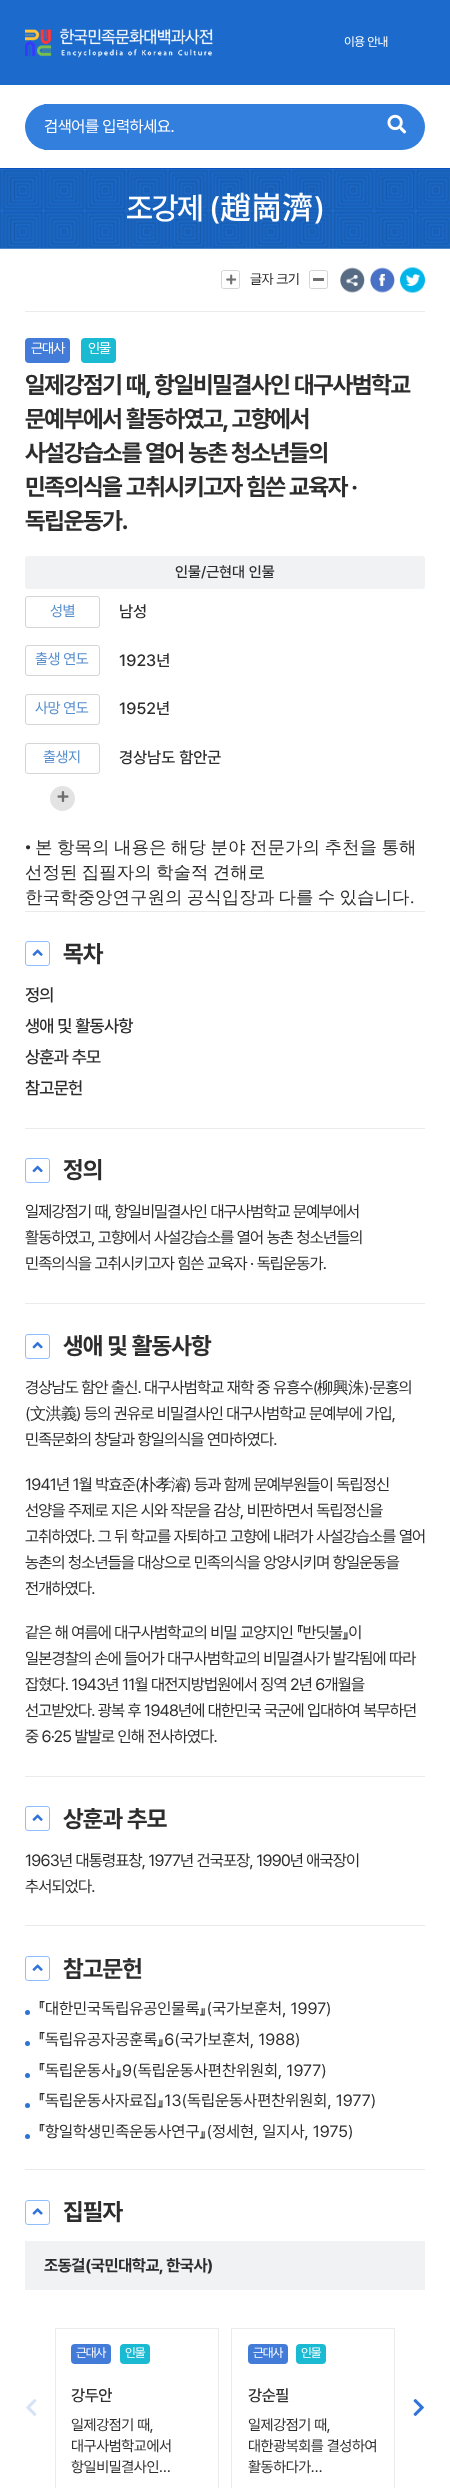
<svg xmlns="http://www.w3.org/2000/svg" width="450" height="2488">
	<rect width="100%" height="100%" fill="#FFFFFF" />
	<rect x="0" y="0" width="450" height="85" fill="#1C6BCC" />
	<text x="344" y="46" font-family="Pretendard" font-size="12.5" letter-spacing="-0.5" fill="#FFFFFF">이용 안내</text>
	<image x="25" y="28" width="188" height="30" href="assets/img1.png" />
	<rect x="0" y="168" width="450" height="1" fill="#0D48BE" />
	<rect x="25" y="104" width="400" height="46" rx="23" fill="#337FDD" />
	<rect x="44" y="104" width="4" height="46" fill="#337FDD" />
	<text x="44" y="132" font-family="Pretendard" font-size="16.25" letter-spacing="-0.4" fill="#FFFFFF">검색어를 입력하세요.</text>
	<image x="387" y="114" width="20" height="20" href="assets/img2.png" />
	<image x="0" y="168" width="450" height="81" href="assets/img3.png" />
	<text x="126" y="219" font-family="Pretendard" font-size="31" font-weight="500" letter-spacing="-1.25" fill="#FFFFFF">조강제 (</text>
	<text x="220" y="219" font-family="Noto Sans CJK KR" font-size="31" font-weight="500" fill="#FFFFFF">趙崗濟</text>
	<text x="314" y="219" font-family="Pretendard" font-size="31" font-weight="500" letter-spacing="-1.25" fill="#FFFFFF">)</text>
	<rect x="25" y="311" width="400" height="1" fill="#EAEAEA" />
	<rect x="221.5" y="270.5" width="18" height="18" rx="2" fill="none" stroke="#D5D5D5" />
	<image x="226" y="274" width="11" height="11" href="assets/img4.png" />
	<text x="250" y="284" font-family="Pretendard" font-size="14" letter-spacing="-0.5" fill="#262626">글자 크기</text>
	<rect x="309.5" y="270.5" width="18" height="18" rx="2" fill="none" stroke="#D5D5D5" />
	<rect x="313" y="278" width="11" height="3" fill="#717171" />
	<image x="340" y="267" width="25" height="26" href="assets/img5.png" />
	<image x="370" y="267" width="25" height="26" href="assets/img6.png" />
	<image x="400" y="267" width="25" height="26" href="assets/img7.png" />
	<rect x="25" y="338" width="45" height="25" rx="4" fill="#437BD8" />
	<text x="31" y="353" font-family="Pretendard" font-size="14" letter-spacing="-1" fill="#FFFFFF">근대사</text>
	<rect x="81" y="338" width="35" height="25" rx="4" fill="#19BAD2" />
	<text x="88" y="353" font-family="Pretendard" font-size="14" letter-spacing="-1" fill="#FFFFFF">인물</text>
	<g font-family="Pretendard" font-size="23.75" font-weight="700" letter-spacing="-1.2" fill="#2D2D2D">
		<text x="25" y="393">일제강점기 때, 항일비밀결사인 대구사범학교</text>
		<text x="25" y="427">문예부에서 활동하였고, 고향에서</text>
		<text x="25" y="461">사설강습소를 열어 농촌 청소년들의</text>
		<text x="25" y="495">민족의식을 고취시키고자 힘쓴 교육자 ·</text>
		<text x="25" y="529">독립운동가.</text>
	</g>
	<rect x="25" y="556" width="400" height="33" rx="3" fill="#F1F2F4" />
	<text x="175" y="577" font-family="Pretendard" font-size="15" font-weight="500" fill="#2D2D2D">인물/근현대 인물</text>
	<rect x="25.5" y="596.5" width="74" height="31" rx="2.5" fill="none" stroke="#D5D5D5" />
	<text x="50" y="616" font-family="Pretendard" font-size="15" letter-spacing="-0.5" fill="#578ECD">성별</text>
	<text x="119" y="617" font-family="Pretendard" font-size="16.25" font-weight="500" fill="#2D2D2D">남성</text>
	<rect x="25.5" y="645.5" width="74" height="30" rx="2.5" fill="none" stroke="#D5D5D5" />
	<text x="35" y="664" font-family="Pretendard" font-size="15" letter-spacing="-0.5" fill="#578ECD">출생 연도</text>
	<text x="119" y="666" font-family="Pretendard" font-size="16.25" font-weight="500" fill="#2D2D2D">1923년</text>
	<rect x="25.5" y="694.5" width="74" height="30" rx="2.5" fill="none" stroke="#D5D5D5" />
	<text x="35" y="713" font-family="Pretendard" font-size="15" letter-spacing="-0.5" fill="#578ECD">사망 연도</text>
	<text x="119" y="714" font-family="Pretendard" font-size="16.25" font-weight="500" fill="#2D2D2D">1952년</text>
	<rect x="25.5" y="743.5" width="74" height="30" rx="2.5" fill="none" stroke="#D5D5D5" />
	<text x="43" y="762" font-family="Pretendard" font-size="15" letter-spacing="-0.5" fill="#578ECD">출생지</text>
	<text x="119" y="763" font-family="Pretendard" font-size="16.25" font-weight="500" fill="#2D2D2D">경상남도 함안군</text>
	<circle cx="62.5" cy="798.5" r="12.5" fill="#E3E3E3" />
	<image x="57" y="791" width="12" height="11" href="assets/img8.png" />
	<text x="25" y="853" font-family="Liberation Serif" font-size="17.5" fill="#2D2D2D">•</text>
	<g font-family="WenQuanYi Zen Hei" font-size="17.5" font-weight="500" fill="#2D2D2D">
		<text x="35" y="853" word-spacing="-0.75">본 항목의 내용은 해당 분야 전문가의 추천을 통해</text>
		<text x="25" y="878" word-spacing="-1">선정된 집필자의 학술적 견해로</text>
		<text x="25" y="903" word-spacing="-1">한국학중앙연구원의 공식입장과 다를 수 있습니다</text>
	</g>
	<text x="410" y="903" font-family="Liberation Serif" font-size="17.5" fill="#2D2D2D">.</text>
	<rect x="25" y="911" width="400" height="1" fill="#EAEAEA" />
	<rect x="25.5" y="941.5" width="24" height="24" rx="2.5" fill="none" stroke="#8FBEFF" />
	<image x="32" y="949" width="11" height="7" href="assets/img9.png" />
	<text x="63" y="962" font-family="Pretendard" font-size="23.75" font-weight="700" letter-spacing="-0.75" fill="#2D2D2D">목차</text>
	<g font-family="Pretendard" font-size="17.5" font-weight="500" letter-spacing="-0.75" fill="#2D2D2D">
		<text x="25" y="1001">정의</text>
		<text x="25" y="1032">생애 및 활동사항</text>
		<text x="25" y="1063">상훈과 추모</text>
		<text x="25" y="1094">참고문헌</text>
	</g>
	<rect x="25" y="1128" width="400" height="1" fill="#EAEAEA" />
	<rect x="25.5" y="1158.5" width="24" height="24" rx="2.5" fill="none" stroke="#8FBEFF" />
	<image x="32" y="1165" width="11" height="8" href="assets/img10.png" />
	<text x="63" y="1178" font-family="Pretendard" font-size="23.75" font-weight="700" letter-spacing="-0.75" fill="#2D2D2D">정의</text>
	<g font-family="Pretendard" font-size="16.25" letter-spacing="-0.8" fill="#2D2D2D">
		<text x="25" y="1217">일제강점기 때, 항일비밀결사인 대구사범학교 문예부에서</text>
		<text x="25" y="1243">활동하였고, 고향에서 사설강습소를 열어 농촌 청소년들의</text>
		<text x="25" y="1269">민족의식을 고취시키고자 힘쓴 교육자 · 독립운동가.</text>
	</g>
	<rect x="25" y="1303" width="400" height="1" fill="#EAEAEA" />
	<rect x="25.5" y="1334.5" width="24" height="24" rx="2.5" fill="none" stroke="#8FBEFF" />
	<image x="32" y="1341" width="11" height="8" href="assets/img11.png" />
	<text x="63" y="1354" font-family="Pretendard" font-size="23.75" font-weight="700" letter-spacing="-0.75" fill="#2D2D2D">생애 및 활동사항</text>
	<text x="25" y="1393" font-family="Pretendard" font-size="16.25" letter-spacing="-0.8" fill="#2D2D2D">경상남도 함안 출신. 대구사범학교 재학 중 유흥수(</text>
	<text x="317" y="1393" font-family="WenQuanYi Zen Hei" font-size="16.25" font-weight="500" letter-spacing="-0.8" fill="#2D2D2D">柳興洙</text>
	<g font-family="Pretendard" font-size="16.25" letter-spacing="-0.8" fill="#2D2D2D">
		<text x="364" y="1393">)·문홍의</text>
		<text x="25" y="1419">(</text>
	</g>
	<text x="30" y="1419" font-family="WenQuanYi Zen Hei" font-size="16.25" font-weight="500" letter-spacing="-0.8" fill="#2D2D2D">文洪義</text>
	<g font-family="Pretendard" font-size="16.25" letter-spacing="-0.8" fill="#2D2D2D">
		<text x="76" y="1419">) 등의 권유로 비밀결사인 대구사범학교 문예부에 가입,</text>
		<text x="25" y="1445">민족문화의 창달과 항일의식을 연마하였다.</text>
		<text x="25" y="1490">1941년 1월 박효준(</text>
	</g>
	<text x="140" y="1490" font-family="WenQuanYi Zen Hei" font-size="16.25" font-weight="500" letter-spacing="-0.8" fill="#2D2D2D">朴孝濬</text>
	<g font-family="Pretendard" font-size="16.25" letter-spacing="-0.8" fill="#2D2D2D">
		<text x="186" y="1490">) 등과 함께 문예부원들이 독립정신</text>
		<text x="25" y="1516">선양을 주제로 지은 시와 작문을 감상, 비판하면서 독립정신을</text>
		<text x="25" y="1542">고취하였다. 그 뒤 학교를 자퇴하고 고향에 내려가 사설강습소를 열어</text>
		<text x="25" y="1568">농촌의 청소년들을 대상으로 민족의식을 앙양시키며 항일운동을</text>
		<text x="25" y="1594">전개하였다.</text>
		<text x="25" y="1638">같은 해 여름에 대구사범학교의 비밀 교양지인 『반딧불』이</text>
		<text x="25" y="1664">일본경찰의 손에 들어가 대구사범학교의 비밀결사가 발각됨에 따라</text>
		<text x="25" y="1690">잡혔다. 1943년 11월 대전지방법원에서 징역 2년 6개월을</text>
		<text x="25" y="1716">선고받았다. 광복 후 1948년에 대한민국 국군에 입대하여 복무하던</text>
		<text x="25" y="1742">중 6·25 발발로 인해 전사하였다.</text>
	</g>
	<rect x="25" y="1776" width="400" height="1" fill="#EAEAEA" />
	<rect x="25.5" y="1806.5" width="24" height="24" rx="2.5" fill="none" stroke="#8FBEFF" />
	<image x="32" y="1814" width="11" height="7" href="assets/img9.png" />
	<text x="63" y="1827" font-family="Pretendard" font-size="23.75" font-weight="700" letter-spacing="-0.75" fill="#2D2D2D">상훈과 추모</text>
	<g font-family="Pretendard" font-size="16.25" letter-spacing="-0.8" fill="#2D2D2D">
		<text x="25" y="1866">1963년 대통령표창, 1977년 건국포장, 1990년 애국장이</text>
		<text x="25" y="1892">추서되었다.</text>
	</g>
	<rect x="25" y="1925" width="400" height="1" fill="#EAEAEA" />
	<rect x="25.5" y="1956.5" width="24" height="24" rx="2.5" fill="none" stroke="#8FBEFF" />
	<image x="32" y="1964" width="11" height="7" href="assets/img9.png" />
	<text x="63" y="1977" font-family="Pretendard" font-size="23.75" font-weight="700" letter-spacing="-0.75" fill="#2D2D2D">참고문헌</text>
	<circle cx="27.5" cy="2012.5" r="2.5" fill="#2A75D5" />
	<text x="38" y="2014" font-family="Pretendard" font-size="16.25" fill="#2D2D2D">『대한민국독립유공인물록』(국가보훈처, 1997)</text>
	<circle cx="27.5" cy="2043.5" r="2.5" fill="#2A75D5" />
	<text x="38" y="2045" font-family="Pretendard" font-size="16.25" fill="#2D2D2D">『독립유공자공훈록』6(국가보훈처, 1988)</text>
	<circle cx="27.5" cy="2075.5" r="2.5" fill="#2A75D5" />
	<text x="38" y="2076" font-family="Pretendard" font-size="16.25" fill="#2D2D2D">『독립운동사』9(독립운동사편찬위원회, 1977)</text>
	<circle cx="27.5" cy="2105.5" r="2.5" fill="#2A75D5" />
	<text x="38" y="2106" font-family="Pretendard" font-size="16.25" fill="#2D2D2D">『독립운동사자료집』13(독립운동사편찬위원회, 1977)</text>
	<circle cx="27.5" cy="2136.5" r="2.5" fill="#2A75D5" />
	<text x="38" y="2137" font-family="Pretendard" font-size="16.25" fill="#2D2D2D">『항일학생민족운동사연구』(정세현, 일지사, 1975)</text>
	<rect x="25" y="2169" width="400" height="1" fill="#EAEAEA" />
	<rect x="25.5" y="2200.5" width="24" height="24" rx="2.5" fill="none" stroke="#8FBEFF" />
	<image x="32" y="2208" width="11" height="7" href="assets/img12.png" />
	<text x="63" y="2220" font-family="Pretendard" font-size="23.75" font-weight="700" letter-spacing="-0.75" fill="#2D2D2D">집필자</text>
	<rect x="25" y="2241" width="400" height="49" fill="#F1F2F4" />
	<text x="44" y="2271" font-family="Pretendard" font-size="16.25" font-weight="700" letter-spacing="-0.4" fill="#2D2D2D">조동걸(국민대학교, 한국사)</text>
	<image x="26" y="2399" width="11" height="17" href="assets/img13.png" />
	<rect x="55.5" y="2328.5" width="163" height="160" fill="none" stroke="#EBEBEB" />
	<rect x="71" y="2344" width="40" height="20" rx="4" fill="#437BD8" />
	<text x="76" y="2357" font-family="Pretendard" font-size="12.5" letter-spacing="-1" fill="#FFFFFF">근대사</text>
	<rect x="120" y="2344" width="30" height="20" rx="4" fill="#19BAD2" />
	<text x="125" y="2357" font-family="Pretendard" font-size="12.5" letter-spacing="-1" fill="#FFFFFF">인물</text>
	<text x="71" y="2401" font-family="Pretendard" font-size="16.25" font-weight="500" letter-spacing="-0.4" fill="#2D2D2D">강두안</text>
	<g font-family="Pretendard" font-size="15" letter-spacing="-0.4" fill="#2D2D2D">
		<text x="71" y="2430">일제강점기 때,</text>
		<text x="71" y="2451">대구사범학교에서</text>
		<text x="71" y="2472">항일비밀결사인…</text>
	</g>
	<rect x="231.5" y="2328.5" width="163" height="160" fill="none" stroke="#EBEBEB" />
	<rect x="248" y="2344" width="40" height="20" rx="4" fill="#437BD8" />
	<text x="253" y="2357" font-family="Pretendard" font-size="12.5" letter-spacing="-1" fill="#FFFFFF">근대사</text>
	<rect x="296" y="2344" width="30" height="20" rx="4" fill="#19BAD2" />
	<text x="301" y="2357" font-family="Pretendard" font-size="12.5" letter-spacing="-1" fill="#FFFFFF">인물</text>
	<text x="248" y="2401" font-family="Pretendard" font-size="16.25" font-weight="500" letter-spacing="-0.4" fill="#2D2D2D">강순필</text>
	<g font-family="Pretendard" font-size="15" letter-spacing="-0.4" fill="#2D2D2D">
		<text x="248" y="2430">일제강점기 때,</text>
		<text x="248" y="2451">대한광복회를 결성하여</text>
		<text x="248" y="2472">활동하다가…</text>
	</g>
	<image x="413" y="2399" width="11" height="17" href="assets/img14.png" />
</svg>
